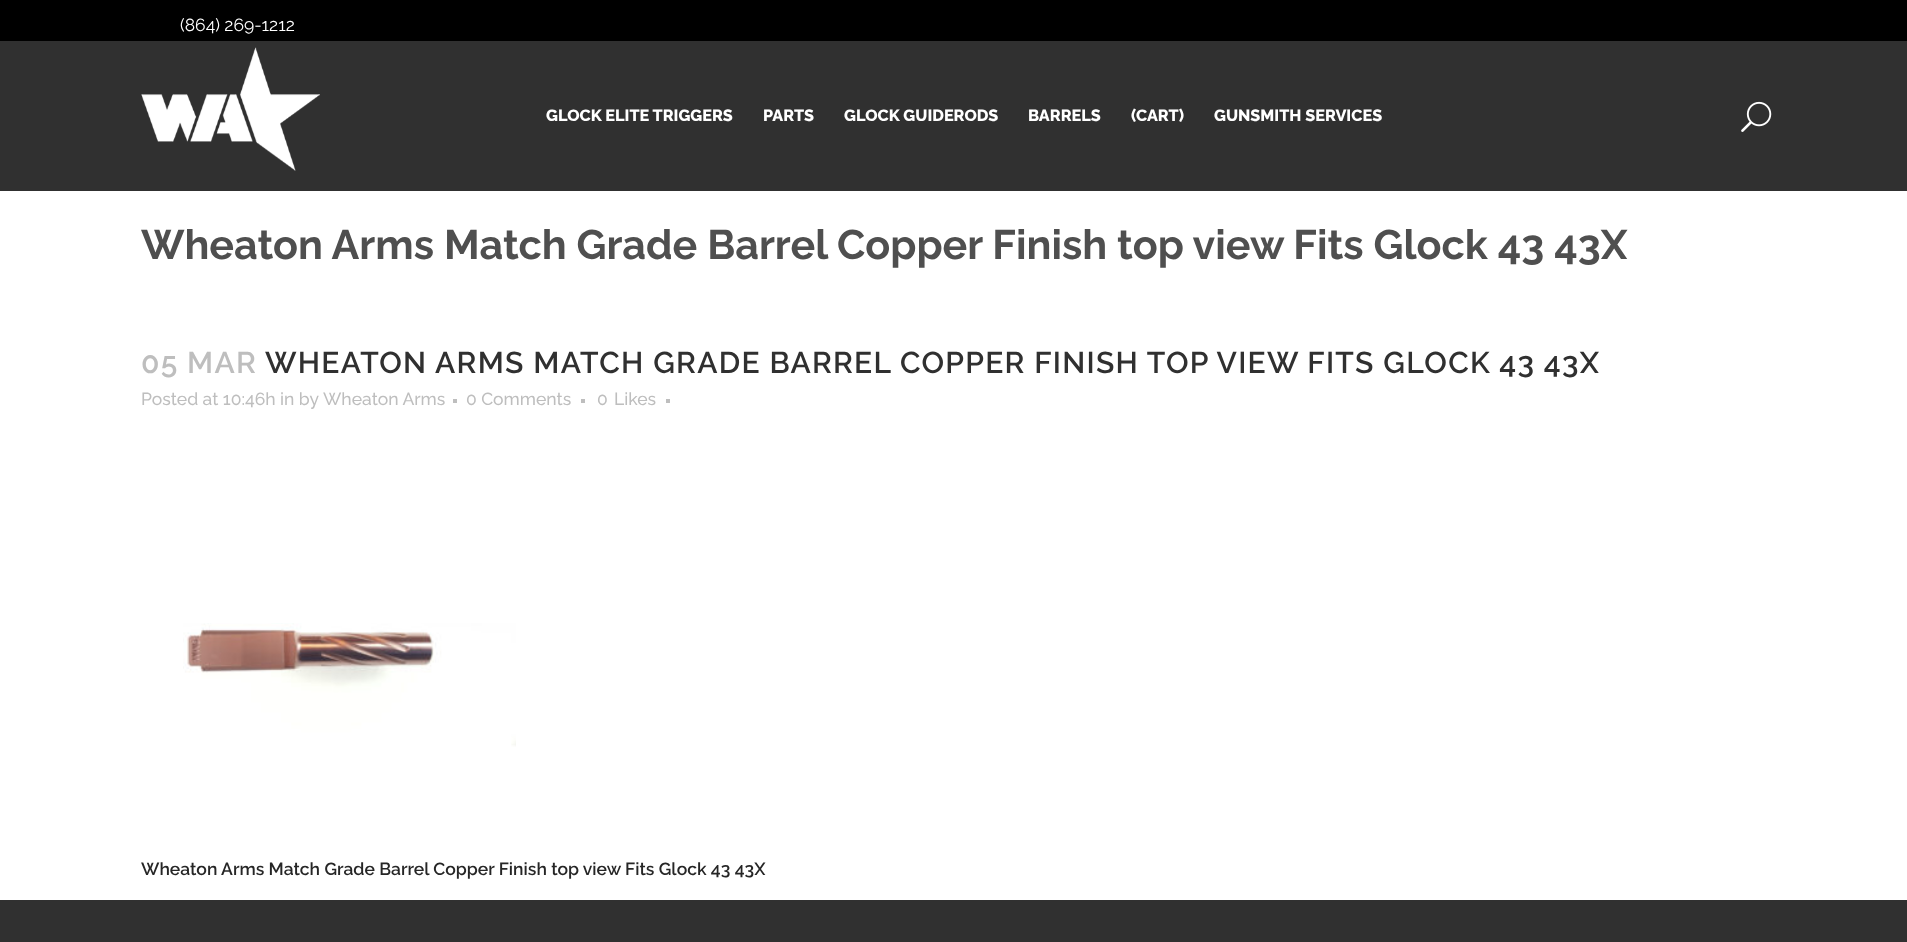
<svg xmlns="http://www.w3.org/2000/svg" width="1907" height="942">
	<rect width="100%" height="100%" fill="#FFFFFF" />
	<rect x="0" y="0" width="1907" height="41" fill="#000000" />
	<text x="180" y="31" font-family="Raleway" font-size="17.5" fill="#FFFFFF">(864) 269-1212</text>
	<rect x="0" y="41" width="1907" height="150" fill="#303030" />
	<image x="141" y="47" width="179" height="124" href="assets/img1.png" />
	<g font-family="Raleway" font-size="16.25" font-weight="800" fill="#FFFFFF">
		<text x="546" y="121">GLOCK ELITE TRIGGERS</text>
		<text x="763" y="121">PARTS</text>
		<text x="844" y="121">GLOCK GUIDERODS</text>
		<text x="1028" y="121">BARRELS</text>
		<text x="1131" y="121">(CART)</text>
		<text x="1214" y="121">GUNSMITH SERVICES</text>
	</g>
	<image x="1741" y="101" width="31" height="31" href="assets/img2.png" />
	<text x="141" y="259" font-family="Raleway" font-size="41.25" font-weight="700" fill="#4F4F4F">Wheaton Arms Match Grade Barrel Copper Finish top view Fits Glock 43 43X</text>
	<text x="141" y="373" font-family="Raleway" font-size="30" font-weight="600" letter-spacing="1.25" fill="#BEBEBE">05 MAR</text>
	<text x="265" y="373" font-family="Raleway" font-size="30" font-weight="600" letter-spacing="1.25" fill="#303030">WHEATON ARMS MATCH GRADE BARREL COPPER FINISH TOP VIEW FITS GLOCK 43 43X</text>
	<g font-family="Raleway" font-size="17.5" font-weight="500" fill="#BEBEBE">
		<text x="141" y="405">Posted at 10:46h in by</text>
		<text x="323" y="405">Wheaton Arms</text>
	</g>
	<rect x="453" y="399" width="4" height="4" fill="#BEBEBE" />
	<text x="466" y="405" font-family="Raleway" font-size="17.5" font-weight="500" fill="#BEBEBE">0 Comments</text>
	<rect x="581" y="399" width="4" height="4" fill="#BEBEBE" />
	<g font-family="Raleway" font-size="17.5" font-weight="500" fill="#BEBEBE">
		<text x="597" y="405">0</text>
		<text x="614" y="405">Likes</text>
	</g>
	<rect x="666" y="399" width="4" height="4" fill="#BEBEBE" />
	<image x="183" y="623" width="333" height="124" href="assets/img3.png" />
	<text x="141" y="875" font-family="Raleway" font-size="17.5" font-weight="600" fill="#262626">Wheaton Arms Match Grade Barrel Copper Finish top view Fits Glock 43 43X</text>
	<rect x="0" y="900" width="1907" height="42" fill="#303030" />
</svg>
